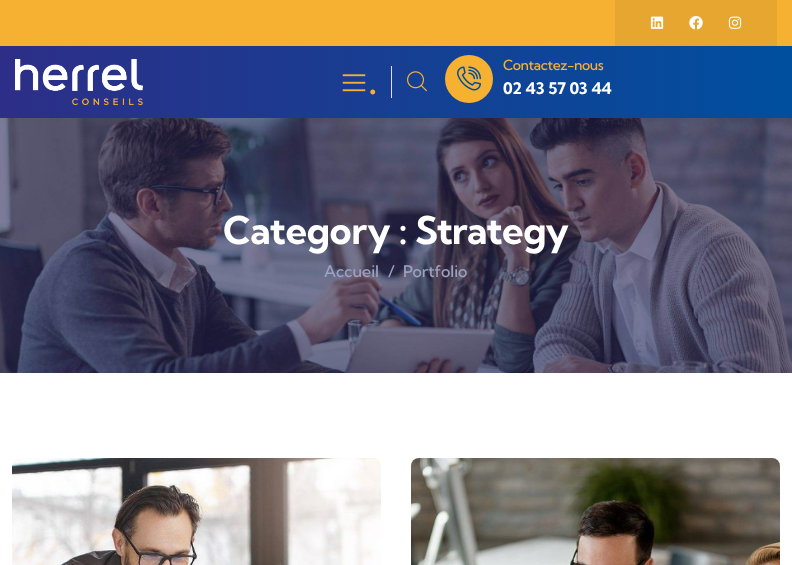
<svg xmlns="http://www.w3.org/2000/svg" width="792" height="565">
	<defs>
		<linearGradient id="g1" gradientUnits="userSpaceOnUse" x1="0" y1="82" x2="792" y2="82"><stop offset="0" stop-color="#2D2E87" /><stop offset="1" stop-color="#004F9F" /></linearGradient>
	</defs>
	<rect width="100%" height="100%" fill="#FFFFFF" />
	<rect x="0" y="0" width="792" height="46" fill="#F6B133" />
	<rect x="615" y="0" width="162" height="46" fill="#E7A630" />
	<image x="650" y="16" width="14" height="13" href="assets/img1.png" />
	<image x="689" y="16" width="14" height="14" href="assets/img2.png" />
	<image x="728" y="16" width="14" height="13" href="assets/img3.png" />
	<rect x="0" y="46" width="792" height="72" fill="url(#g1)" />
	<image x="15" y="59" width="128" height="46" href="assets/img4.png" />
	<image x="342" y="74" width="24" height="18" href="assets/img5.png" />
	<text x="369" y="94" font-family="Liberation Serif" font-size="30" font-weight="700" fill="#F6B133">.</text>
	<rect x="391" y="66" width="1" height="32" fill="#E2DFEB" />
	<image x="407" y="71" width="20" height="21" href="assets/img6.png" />
	<circle cx="469" cy="79" r="24" fill="#F6B133" />
	<image x="457" y="66" width="24" height="25" href="assets/img7.png" />
	<text x="503" y="70" font-family="Kumbh Sans" font-size="14" font-weight="500" letter-spacing="-0.4" fill="#F6B133">Contactez-nous</text>
	<text x="503" y="94" font-family="Kumbh Sans" font-size="16" font-weight="700" fill="#FFFFFF">02 43 57 03 44</text>
	<image x="0" y="118" width="792" height="255" href="assets/img8.png" />
	<text x="223" y="244" font-family="Kumbh Sans" font-size="38" font-weight="700" letter-spacing="-0.4" fill="#FFFFFF">Category : Strategy</text>
	<g font-family="Kumbh Sans" font-size="16" font-weight="500" fill="#A0A0C0">
		<text x="324" y="277">Accueil</text>
		<text x="388" y="277">/</text>
		<text x="403" y="277">Portfolio</text>
	</g>
	<image x="12" y="458" width="369" height="107" href="assets/img9.png" />
	<image x="411" y="458" width="369" height="107" href="assets/img10.png" />
</svg>
